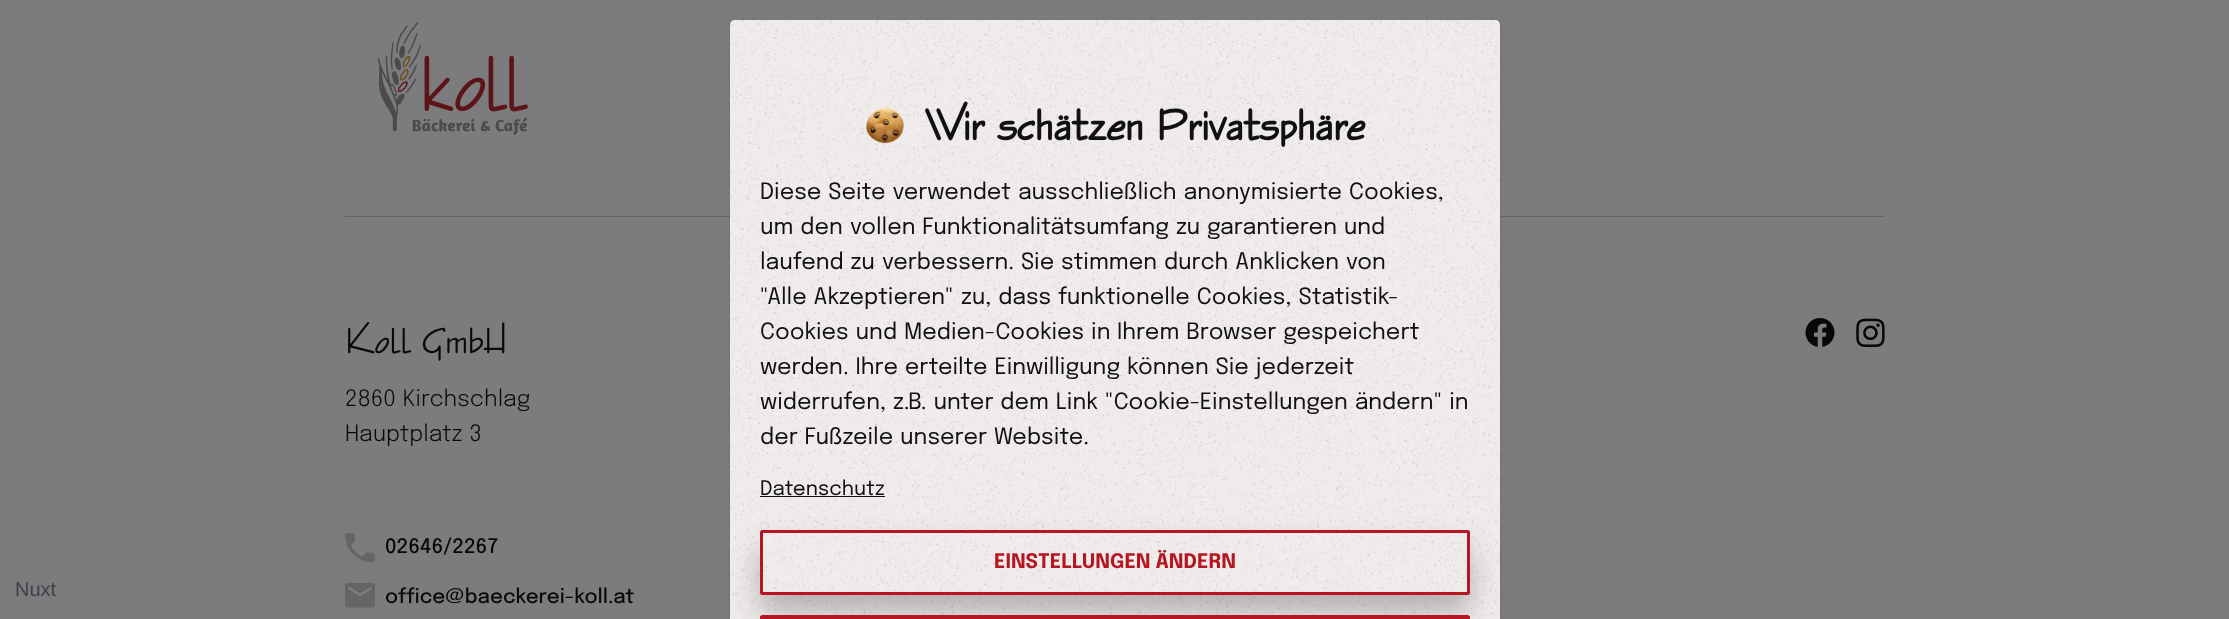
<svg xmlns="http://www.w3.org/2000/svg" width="2229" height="619">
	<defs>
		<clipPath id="clip1"><path d="M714 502H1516V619H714ZM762.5 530H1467.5C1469 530 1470 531 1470 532.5V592.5C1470 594 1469 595 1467.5 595H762.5C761 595 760 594 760 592.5V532.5C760 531 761 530 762.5 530Z" clip-rule="evenodd" /></clipPath>
	</defs>
	<rect width="100%" height="100%" fill="#7C7C7E" />
	<image x="377" y="22" width="151" height="113" href="assets/img1.png" />
	<text x="15" y="596" font-family="Liberation Sans" font-size="20" fill="#404146">Nuxt</text>
	<rect x="345" y="216" width="1540" height="1" fill="#656567" />
	<text x="345" y="353" word-spacing="1.25" font-family="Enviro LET" font-size="37.5" fill="#09080A">Koll GmbH</text>
	<g font-family="Epilogue" font-size="22.5" font-weight="300" fill="#09080A">
		<text x="345" y="406" word-spacing="1.25">2860 Kirchschlag</text>
		<text x="345" y="441" word-spacing="1.25">Hauptplatz 3</text>
	</g>
	<image x="345" y="533" width="30" height="30" href="assets/img2.png" />
	<text x="385" y="553" font-family="Epilogue" font-size="20" font-weight="500" fill="#09080A">02646/2267</text>
	<image x="345" y="583" width="30" height="25" href="assets/img3.png" />
	<text x="385" y="603" font-family="Epilogue" font-size="20" font-weight="500" fill="#09080A">office@baeckerei-koll.at</text>
	<image x="1805" y="318" width="30" height="29" href="assets/img4.png" />
	<image x="1856" y="318" width="29" height="30" href="assets/img5.png" />
	<rect x="730" y="21" width="770" height="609" rx="5" fill="#000000" fill-opacity="0.1" filter="blur(2px)" />
	<path d="M735 20H1495C1498 20 1500 22 1500 25V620H730V25C730 22 732 20 735 20Z" fill="#F0ECEB" />
	<image x="730" y="20" width="770" height="599" href="assets/img6.png" />
	<image x="866" y="107" width="38" height="37" href="assets/img7.png" />
	<text x="925" y="140" word-spacing="1.25" font-family="Enviro LET" font-size="45" font-weight="700" fill="#111014">Wir schätzen Privatsphäre</text>
	<g font-family="Epilogue" font-size="22.5" fill="#111014">
		<text x="760" y="199" word-spacing="1.25">Diese Seite verwendet ausschließlich anonymisierte Cookies,</text>
		<text x="760" y="234" word-spacing="1.25">um den</text>
		<text x="850" y="234" word-spacing="1.25">vollen Funktionalitätsumfang zu garantieren und</text>
		<text x="760" y="269" word-spacing="1.25">laufend zu</text>
		<text x="882" y="269" word-spacing="1.25">verbessern. Sie stimmen durch Anklicken von</text>
		<text x="760" y="304" word-spacing="1.25">"Alle Akzeptieren"</text>
		<text x="961" y="304" word-spacing="1.25">zu, dass</text>
		<text x="1058" y="304" word-spacing="1.25">funktionelle Cookies, Statistik-</text>
		<text x="760" y="339" word-spacing="1.25">Cookies und Medien-Cookies in</text>
		<text x="1117" y="339" word-spacing="1.25">Ihrem Browser gespeichert</text>
		<text x="760" y="374" word-spacing="1.25">werden. Ihre erteilte Einwilligung</text>
		<text x="1127" y="374" word-spacing="1.25">können Sie jederzeit</text>
		<text x="760" y="409" word-spacing="1.25">widerrufen, z.B. unter dem Link</text>
		<text x="1105" y="409" word-spacing="1.25">"Cookie-Einstellungen ändern" in</text>
		<text x="760" y="444" word-spacing="1.25">der Fußzeile unserer Website.</text>
	</g>
	<text x="760" y="495" font-family="Epilogue" font-size="20" fill="#111014">Datenschutz</text>
	<rect x="760" y="496" width="125" height="1" fill="#111014" />
	<g clip-path="url(#clip1)">
		<rect x="760" y="548" width="710" height="65" rx="2.5" fill="#000000" fill-opacity="0.25" filter="blur(15px)" />
	</g>
	<rect x="761.5" y="531.5" width="707" height="62" rx="1" fill="none" stroke="#B51621" stroke-width="3" />
	<text x="994" y="568" font-family="Epilogue" font-size="20" font-weight="700" fill="#B51621">EINSTELLUNGEN ÄNDERN</text>
	<path d="M762.5 615H1467.5C1469 615 1470 616 1470 617.5V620H760V617.5C760 616 761 615 762.5 615Z" fill="#B51621" />
</svg>
